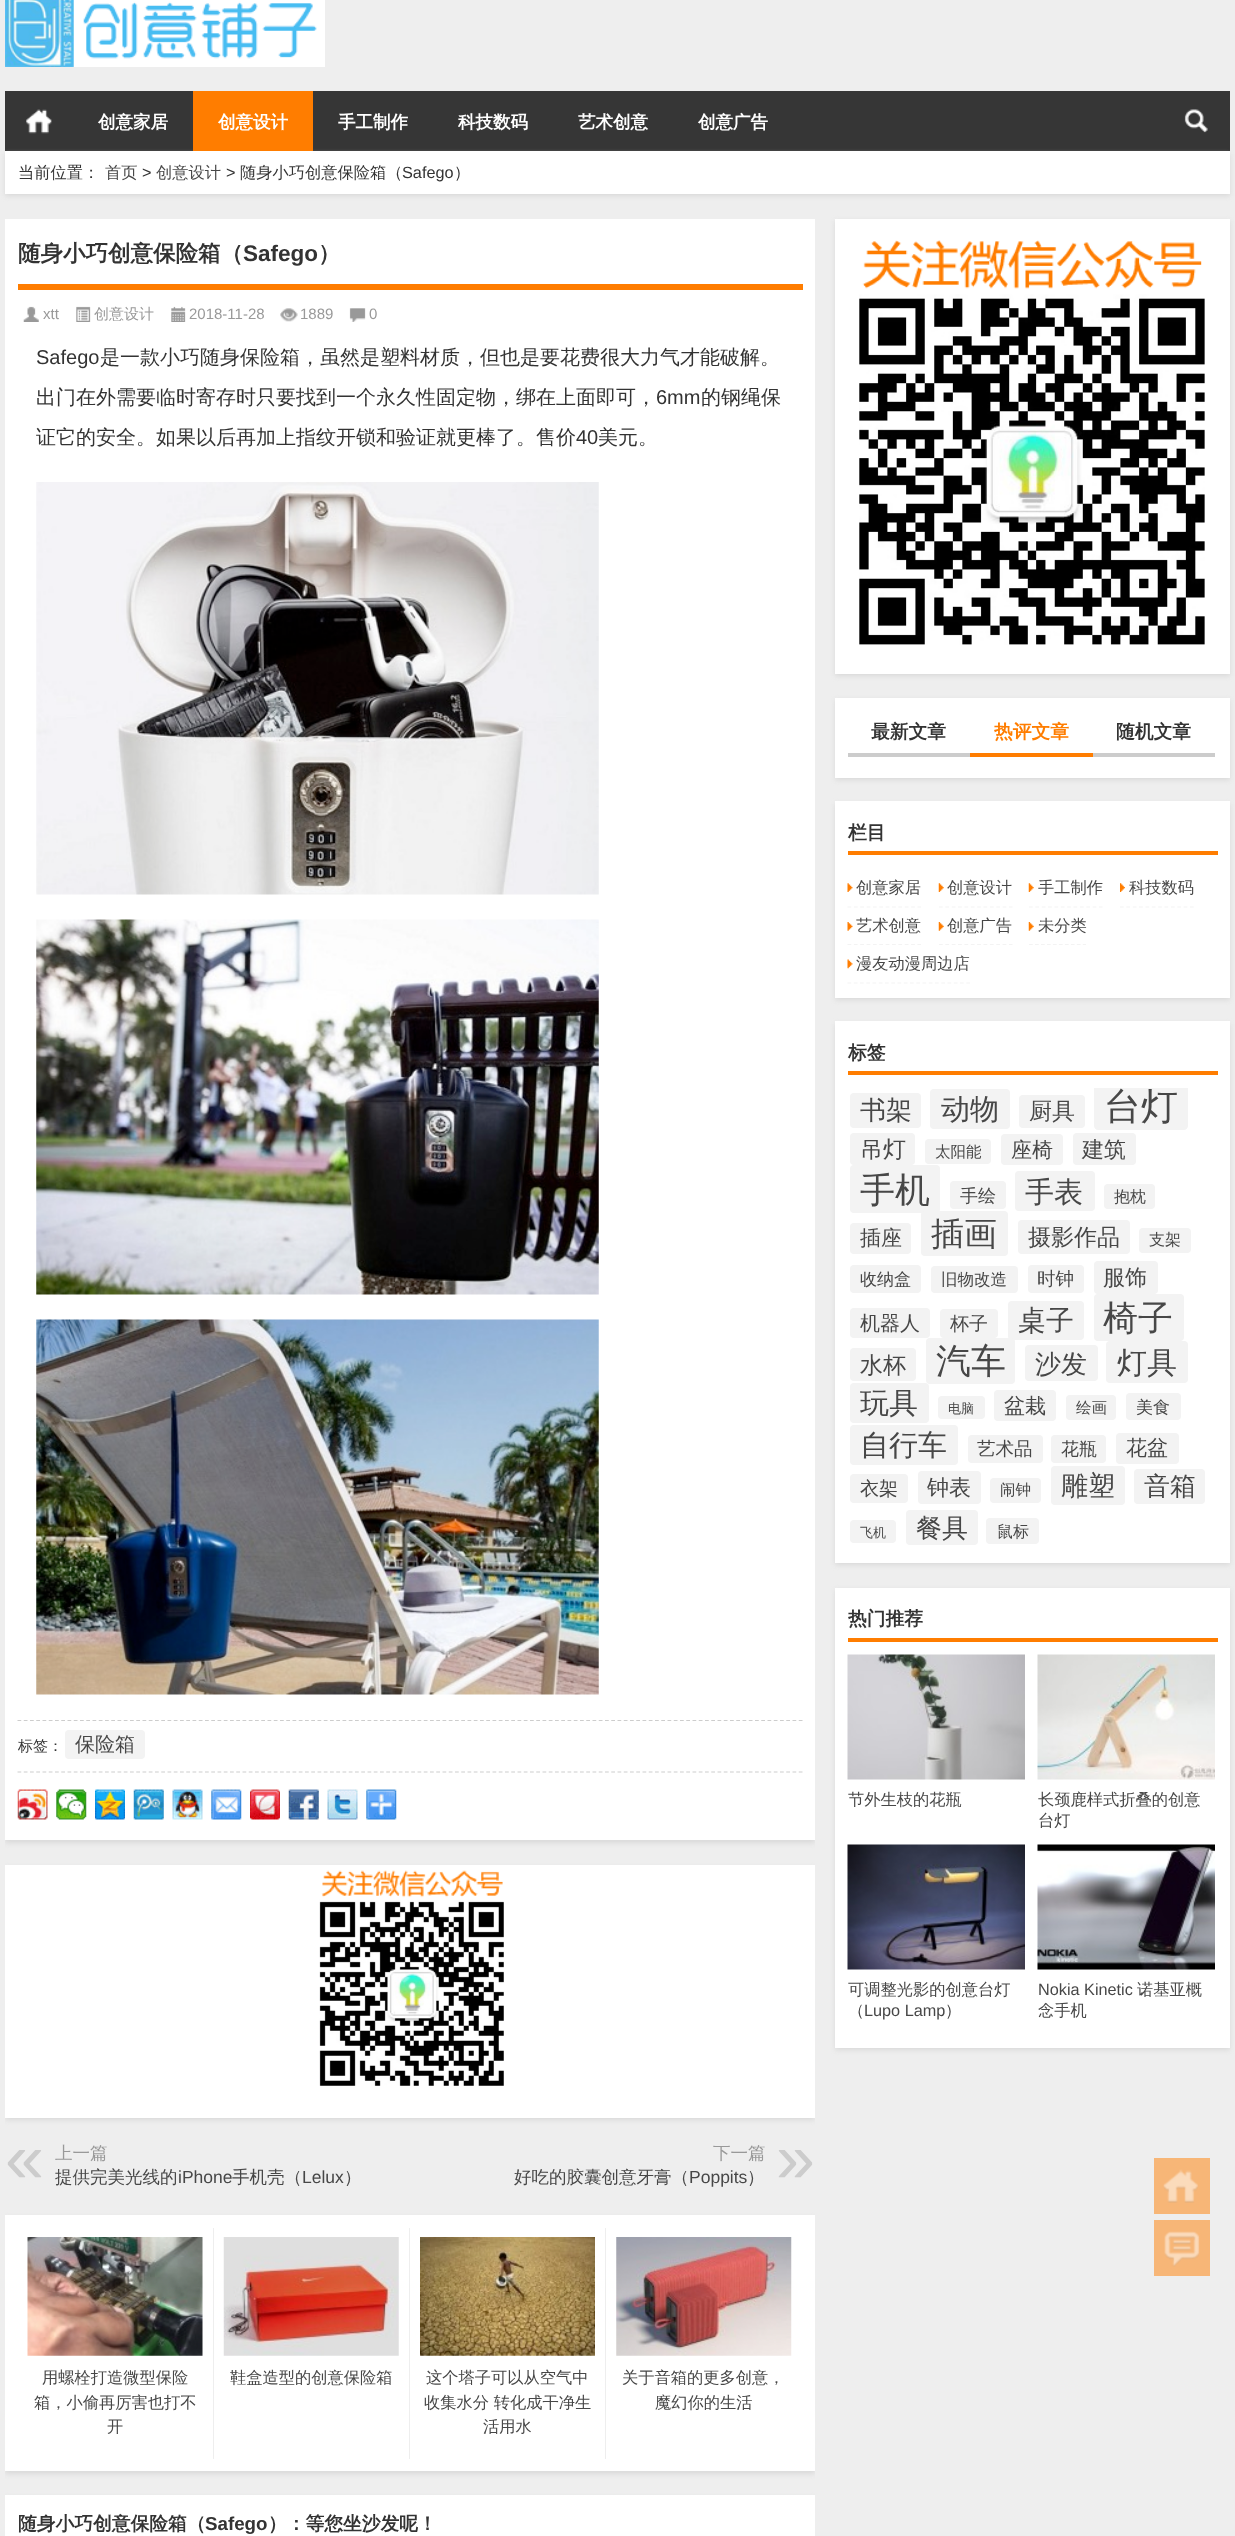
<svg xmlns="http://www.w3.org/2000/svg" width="1235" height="2536">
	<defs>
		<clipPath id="clip1"><rect x="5" y="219" width="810" height="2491" /></clipPath>
	</defs>
	<rect width="100%" height="100%" fill="#EEEEEE" />
	<image x="5" y="0" width="320" height="67" href="assets/img1.png" />
	<rect x="5" y="91" width="1225" height="60" fill="#363636" />
	<image x="26" y="109" width="26" height="25" href="assets/img2.png" />
	<text x="98" y="128" font-family="WenQuanYi Zen Hei" font-size="17.5" font-weight="700" fill="#FFFFFF">创意家居</text>
	<rect x="5" y="154" width="1225" height="42" fill="#D9D9D9" filter="blur(2.5px)" />
	<rect x="193" y="91" width="120" height="60" fill="#FF7D00" />
	<g font-family="WenQuanYi Zen Hei" font-size="17.5" font-weight="700" fill="#FFFFFF">
		<text x="218" y="128">创意设计</text>
		<text x="338" y="128">手工制作</text>
		<text x="458" y="128">科技数码</text>
		<text x="578" y="128">艺术创意</text>
		<text x="698" y="128">创意广告</text>
	</g>
	<image x="1184" y="109" width="24" height="24" href="assets/img3.png" />
	<rect x="5" y="151" width="1225" height="43" fill="#FFFFFF" />
	<text x="18" y="178" font-family="WenQuanYi Zen Hei" font-size="16.25" font-weight="500" fill="#333333">当前位置：</text>
	<text x="105" y="178" font-family="WenQuanYi Zen Hei" font-size="16.25" font-weight="500" fill="#474747">首页</text>
	<text x="142" y="178" font-family="Liberation Sans" font-size="16.25" fill="#333333">&gt;</text>
	<text x="156" y="178" font-family="WenQuanYi Zen Hei" font-size="16.25" font-weight="500" fill="#474747">创意设计</text>
	<text x="226" y="178" font-family="Liberation Sans" font-size="16.25" fill="#333333">&gt;</text>
	<text x="240" y="178" font-family="WenQuanYi Zen Hei" font-size="16.25" font-weight="500" fill="#333333">随身小巧创意保险箱（</text>
	<text x="402" y="178" font-family="Liberation Sans" font-size="16.25" fill="#333333">Safego</text>
	<text x="454" y="178" font-family="WenQuanYi Zen Hei" font-size="16.25" font-weight="500" fill="#333333">）</text>
	<g clip-path="url(#clip1)">
		<rect x="5" y="221" width="810" height="1622" fill="#D9D9D9" filter="blur(2.5px)" />
	</g>
	<rect x="5" y="219" width="810" height="1621" fill="#FFFFFF" />
	<text x="18" y="261" font-family="WenQuanYi Zen Hei" font-size="22.5" font-weight="700" fill="#333333">随身小巧创意保险箱（</text>
	<text x="243" y="261" font-family="Liberation Sans" font-size="22.5" font-weight="700" fill="#333333">Safego</text>
	<text x="318" y="261" font-family="WenQuanYi Zen Hei" font-size="22.5" font-weight="700" fill="#333333">）</text>
	<rect x="18" y="284" width="785" height="6" fill="#FF7D00" />
	<image x="23" y="306" width="16" height="16" href="assets/img4.png" />
	<text x="43" y="319" font-family="Liberation Sans" font-size="15" fill="#999999">xtt</text>
	<image x="76" y="306" width="15" height="16" href="assets/img5.png" />
	<text x="94" y="319" font-family="WenQuanYi Zen Hei" font-size="15" font-weight="500" fill="#999999">创意设计</text>
	<image x="171" y="306" width="15" height="16" href="assets/img6.png" />
	<text x="189" y="319" font-family="Liberation Sans" font-size="15" fill="#999999">2018-11-28</text>
	<image x="280" y="308" width="18" height="14" href="assets/img7.png" />
	<text x="300" y="319" font-family="Liberation Sans" font-size="15" fill="#999999">1889</text>
	<image x="349" y="308" width="17" height="14" href="assets/img8.png" />
	<text x="369" y="319" font-family="Liberation Sans" font-size="15" fill="#999999">0</text>
	<text x="36" y="364" font-family="Liberation Sans" font-size="20" fill="#333333">Safego</text>
	<g font-family="WenQuanYi Zen Hei" font-size="20" font-weight="500" fill="#333333">
		<text x="100" y="364">是一款小巧随身保险箱，虽然是塑料材质，但也是要花费很大力气才能破解。</text>
		<text x="36" y="404">出门在外需要临时寄存时只要找到一个永久性固定物，绑在上面即可，</text>
	</g>
	<text x="656" y="404" font-family="Liberation Sans" font-size="20" fill="#333333">6mm</text>
	<g font-family="WenQuanYi Zen Hei" font-size="20" font-weight="500" fill="#333333">
		<text x="701" y="404">的钢绳保</text>
		<text x="36" y="444">证它的安全。如果以后再加上指纹开锁和验证就更棒了。售价</text>
	</g>
	<text x="576" y="444" font-family="Liberation Sans" font-size="20" fill="#333333">40</text>
	<text x="598" y="444" font-family="WenQuanYi Zen Hei" font-size="20" font-weight="500" fill="#333333">美元。</text>
	<image x="36" y="482" width="563" height="413" href="assets/img9.png" />
	<image x="36" y="919" width="563" height="376" href="assets/img10.png" />
	<image x="36" y="1319" width="563" height="376" href="assets/img11.png" />
	<path d="M17.5 1720.5H802.5" fill="none" stroke="#CDCDCD" stroke-width="1.2" stroke-dasharray="3.75 2.5" />
	<path d="M17.5 1772H802.5" fill="none" stroke="#CDCDCD" stroke-width="1.2" stroke-dasharray="3.75 2.5" />
	<text x="18" y="1751" font-family="WenQuanYi Zen Hei" font-size="15" font-weight="500" fill="#333333">标签：</text>
	<rect x="65" y="1730" width="80" height="29" rx="4" fill="#F3F3F3" />
	<text x="75" y="1751" font-family="WenQuanYi Zen Hei" font-size="20" font-weight="500" fill="#474747">保险箱</text>
	<image x="17" y="1789" width="31" height="31" href="assets/img12.png" />
	<image x="56" y="1789" width="31" height="31" href="assets/img13.png" />
	<image x="95" y="1789" width="30" height="31" href="assets/img14.png" />
	<image x="133" y="1789" width="31" height="31" href="assets/img15.png" />
	<image x="172" y="1789" width="31" height="31" href="assets/img16.png" />
	<image x="211" y="1789" width="31" height="31" href="assets/img17.png" />
	<image x="250" y="1789" width="30" height="31" href="assets/img18.png" />
	<image x="288" y="1789" width="31" height="31" href="assets/img19.png" />
	<image x="327" y="1789" width="31" height="31" href="assets/img20.png" />
	<image x="366" y="1789" width="31" height="31" href="assets/img21.png" />
	<g clip-path="url(#clip1)">
		<rect x="5" y="1868" width="810" height="252" fill="#D9D9D9" filter="blur(2.5px)" />
	</g>
	<rect x="5" y="1865" width="810" height="253" fill="#FFFFFF" />
	<image x="319" y="1870" width="185" height="216" href="assets/img22.png" />
	<text x="55" y="2159" font-family="WenQuanYi Zen Hei" font-size="17.5" font-weight="500" fill="#999999">上一篇</text>
	<text x="5" y="2182" font-family="Liberation Sans" font-size="70" fill="#CCCCCC">«</text>
	<text x="55" y="2183" font-family="WenQuanYi Zen Hei" font-size="17.5" font-weight="500" fill="#474747">提供完美光线的</text>
	<text x="178" y="2183" font-family="Liberation Sans" font-size="17.5" fill="#474747">iPhone</text>
	<text x="232" y="2183" font-family="WenQuanYi Zen Hei" font-size="17.5" font-weight="500" fill="#474747">手机壳（</text>
	<text x="302" y="2183" font-family="Liberation Sans" font-size="17.5" fill="#474747">Lelux</text>
	<text x="344" y="2183" font-family="WenQuanYi Zen Hei" font-size="17.5" font-weight="500" fill="#474747">）</text>
	<text x="713" y="2159" font-family="WenQuanYi Zen Hei" font-size="17.5" font-weight="500" fill="#999999">下一篇</text>
	<text x="514" y="2183" font-family="WenQuanYi Zen Hei" font-size="17.5" font-weight="500" fill="#474747">好吃的胶囊创意牙膏（</text>
	<text x="689" y="2183" font-family="Liberation Sans" font-size="17.5" fill="#474747">Poppits</text>
	<text x="747" y="2183" font-family="WenQuanYi Zen Hei" font-size="17.5" font-weight="500" fill="#474747">）</text>
	<text x="776" y="2182" font-family="Liberation Sans" font-size="70" fill="#CCCCCC">»</text>
	<g clip-path="url(#clip1)">
		<rect x="5" y="2218" width="810" height="256" fill="#D9D9D9" filter="blur(2.5px)" />
	</g>
	<rect x="5" y="2215" width="810" height="256" fill="#FFFFFF" />
	<image x="27" y="2237" width="176" height="119" href="assets/img23.png" />
	<g font-family="WenQuanYi Zen Hei" font-size="16.25" font-weight="500" fill="#474747">
		<text x="42" y="2383">用螺栓打造微型保险</text>
		<text x="34" y="2408">箱，小偷再厉害也打不</text>
		<text x="107" y="2432">开</text>
	</g>
	<rect x="213" y="2228" width="1" height="231" fill="#EEEEEE" />
	<image x="223" y="2237" width="176" height="119" href="assets/img24.png" />
	<text x="230" y="2383" font-family="WenQuanYi Zen Hei" font-size="16.25" font-weight="500" fill="#474747">鞋盒造型的创意保险箱</text>
	<rect x="409" y="2228" width="1" height="231" fill="#EEEEEE" />
	<image x="420" y="2237" width="175" height="119" href="assets/img25.png" />
	<g font-family="WenQuanYi Zen Hei" font-size="16.25" font-weight="500" fill="#474747">
		<text x="426" y="2383">这个塔子可以从空气中</text>
		<text x="424" y="2408">收集水分 转化成干净生</text>
		<text x="483" y="2432">活用水</text>
	</g>
	<rect x="605" y="2228" width="1" height="231" fill="#EEEEEE" />
	<image x="616" y="2237" width="176" height="119" href="assets/img26.png" />
	<g font-family="WenQuanYi Zen Hei" font-size="16.25" font-weight="500" fill="#474747">
		<text x="622" y="2383">关于音箱的更多创意，</text>
		<text x="655" y="2408">魔幻你的生活</text>
	</g>
	<g clip-path="url(#clip1)">
		<rect x="5" y="2498" width="810" height="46" fill="#D9D9D9" filter="blur(2.5px)" />
	</g>
	<rect x="5" y="2495" width="810" height="41" fill="#FFFFFF" />
	<text x="18" y="2530" font-family="WenQuanYi Zen Hei" font-size="18.75" font-weight="700" fill="#333333">随身小巧创意保险箱（</text>
	<text x="205" y="2530" font-family="Liberation Sans" font-size="18.75" font-weight="700" fill="#333333">Safego</text>
	<text x="268" y="2530" font-family="WenQuanYi Zen Hei" font-size="18.75" font-weight="700" fill="#333333">）：等您坐沙发呢！</text>
	<rect x="835" y="221" width="395" height="455" fill="#D9D9D9" filter="blur(2.5px)" />
	<rect x="835" y="219" width="395" height="455" fill="#FFFFFF" />
	<image x="859" y="240" width="346" height="405" href="assets/img27.png" />
	<rect x="835" y="700" width="395" height="80" fill="#D9D9D9" filter="blur(2.5px)" />
	<rect x="835" y="698" width="395" height="80" fill="#FFFFFF" />
	<rect x="848" y="753" width="122" height="4" fill="#CCCCCC" />
	<text x="871" y="738" font-family="WenQuanYi Zen Hei" font-size="18.75" font-weight="700" fill="#333333">最新文章</text>
	<rect x="970" y="753" width="123" height="4" fill="#FF7D00" />
	<text x="994" y="738" font-family="WenQuanYi Zen Hei" font-size="18.75" font-weight="700" fill="#FF7D00">热评文章</text>
	<rect x="1093" y="753" width="122" height="4" fill="#CCCCCC" />
	<text x="1116" y="738" font-family="WenQuanYi Zen Hei" font-size="18.75" font-weight="700" fill="#333333">随机文章</text>
	<rect x="835" y="804" width="395" height="196" fill="#D9D9D9" filter="blur(2.5px)" />
	<rect x="835" y="801" width="395" height="197" fill="#FFFFFF" />
	<rect x="848" y="851" width="370" height="4" fill="#FF7D00" />
	<text x="848" y="839" font-family="WenQuanYi Zen Hei" font-size="18.75" font-weight="700" fill="#333333">栏目</text>
	<image x="847" y="883" width="6" height="9" href="assets/img28.png" />
	<path d="M847.5 907H921" fill="none" stroke="#F3F3F3" stroke-width="1.2" stroke-dasharray="3.75 2.61" />
	<text x="856" y="893" font-family="WenQuanYi Zen Hei" font-size="16.25" font-weight="500" fill="#474747">创意家居</text>
	<image x="938" y="883" width="6" height="9" href="assets/img29.png" />
	<path d="M939 907H1012.5" fill="none" stroke="#F3F3F3" stroke-width="1.2" stroke-dasharray="3.75 2.61" />
	<text x="947" y="893" font-family="WenQuanYi Zen Hei" font-size="16.25" font-weight="500" fill="#474747">创意设计</text>
	<image x="1028" y="883" width="6" height="9" href="assets/img30.png" />
	<path d="M1029 907H1102.5" fill="none" stroke="#F3F3F3" stroke-width="1.2" stroke-dasharray="3.75 2.61" />
	<text x="1038" y="893" font-family="WenQuanYi Zen Hei" font-size="16.25" font-weight="500" fill="#474747">手工制作</text>
	<image x="1120" y="883" width="5" height="9" href="assets/img31.png" />
	<path d="M1120 907H1194" fill="none" stroke="#F3F3F3" stroke-width="1.2" stroke-dasharray="3.75 2.61" />
	<text x="1129" y="893" font-family="WenQuanYi Zen Hei" font-size="16.25" font-weight="500" fill="#474747">科技数码</text>
	<image x="847" y="922" width="6" height="9" href="assets/img32.png" />
	<path d="M847.5 944.5H921" fill="none" stroke="#F3F3F3" stroke-width="1.2" stroke-dasharray="3.75 2.61" />
	<text x="856" y="931" font-family="WenQuanYi Zen Hei" font-size="16.25" font-weight="500" fill="#474747">艺术创意</text>
	<image x="938" y="922" width="6" height="9" href="assets/img33.png" />
	<path d="M939 944.5H1012.5" fill="none" stroke="#F3F3F3" stroke-width="1.2" stroke-dasharray="3.75 2.61" />
	<text x="947" y="931" font-family="WenQuanYi Zen Hei" font-size="16.25" font-weight="500" fill="#474747">创意广告</text>
	<image x="1028" y="922" width="6" height="9" href="assets/img34.png" />
	<path d="M1029 944.5H1086" fill="none" stroke="#F3F3F3" stroke-width="1.2" stroke-dasharray="3.75 2.23" />
	<text x="1038" y="931" font-family="WenQuanYi Zen Hei" font-size="16.25" font-weight="500" fill="#474747">未分类</text>
	<image x="847" y="959" width="6" height="10" href="assets/img35.png" />
	<path d="M847.5 983H970" fill="none" stroke="#F3F3F3" stroke-width="1.2" stroke-dasharray="3.75 2.5" />
	<text x="856" y="969" font-family="WenQuanYi Zen Hei" font-size="16.25" font-weight="500" fill="#474747">漫友动漫周边店</text>
	<rect x="835" y="1024" width="395" height="541" fill="#D9D9D9" filter="blur(2.5px)" />
	<rect x="835" y="1021" width="395" height="542" fill="#FFFFFF" />
	<rect x="848" y="1071" width="370" height="4" fill="#FF7D00" />
	<text x="848" y="1059" font-family="WenQuanYi Zen Hei" font-size="18.75" font-weight="700" fill="#333333">标签</text>
	<rect x="850" y="1093" width="71" height="35" rx="4" fill="#F3F3F3" />
	<text x="860" y="1119" font-family="WenQuanYi Zen Hei" font-size="26" font-weight="500" fill="#474747">书架</text>
	<rect x="930" y="1089" width="80" height="40" rx="4" fill="#F3F3F3" />
	<text x="941" y="1119" font-family="WenQuanYi Zen Hei" font-size="29" font-weight="500" fill="#474747">动物</text>
	<rect x="1019" y="1095" width="66" height="33" rx="4" fill="#F3F3F3" />
	<text x="1029" y="1119" font-family="WenQuanYi Zen Hei" font-size="23" font-weight="500" fill="#474747">厨具</text>
	<path d="M1094 1088H1188V1126C1188 1128 1186 1130 1184 1130H1098C1096 1130 1094 1128 1094 1126Z" fill="#F3F3F3" />
	<text x="1104" y="1119" font-family="WenQuanYi Zen Hei" font-size="37" font-weight="500" fill="#474747">台灯</text>
	<rect x="850" y="1133" width="65" height="32" rx="4" fill="#F3F3F3" />
	<text x="860" y="1157" font-family="WenQuanYi Zen Hei" font-size="23" font-weight="500" fill="#474747">吊灯</text>
	<rect x="925" y="1139" width="66" height="25" rx="4" fill="#F3F3F3" />
	<text x="935" y="1157" font-family="WenQuanYi Zen Hei" font-size="15.5" font-weight="500" fill="#474747">太阳能</text>
	<rect x="1001" y="1134" width="62" height="31" rx="4" fill="#F3F3F3" />
	<text x="1011" y="1157" font-family="WenQuanYi Zen Hei" font-size="21" font-weight="500" fill="#474747">座椅</text>
	<rect x="1073" y="1133" width="63" height="32" rx="4" fill="#F3F3F3" />
	<text x="1082" y="1157" font-family="WenQuanYi Zen Hei" font-size="22" font-weight="500" fill="#474747">建筑</text>
	<rect x="850" y="1165" width="90" height="48" rx="4" fill="#F3F3F3" />
	<text x="860" y="1202" font-family="WenQuanYi Zen Hei" font-size="35" font-weight="500" fill="#474747">手机</text>
	<rect x="950" y="1181" width="56" height="28" rx="4" fill="#F3F3F3" />
	<text x="960" y="1202" font-family="WenQuanYi Zen Hei" font-size="18" font-weight="500" fill="#474747">手绘</text>
	<rect x="1015" y="1171" width="80" height="40" rx="4" fill="#F3F3F3" />
	<text x="1025" y="1202" font-family="WenQuanYi Zen Hei" font-size="29" font-weight="500" fill="#474747">手表</text>
	<rect x="1104" y="1184" width="51" height="25" rx="4" fill="#F3F3F3" />
	<text x="1114" y="1202" font-family="WenQuanYi Zen Hei" font-size="16" font-weight="500" fill="#474747">抱枕</text>
	<rect x="850" y="1223" width="61" height="31" rx="4" fill="#F3F3F3" />
	<text x="860" y="1245" font-family="WenQuanYi Zen Hei" font-size="21" font-weight="500" fill="#474747">插座</text>
	<rect x="921" y="1211" width="87" height="45" rx="4" fill="#F3F3F3" />
	<text x="931" y="1245" font-family="WenQuanYi Zen Hei" font-size="33" font-weight="500" fill="#474747">插画</text>
	<rect x="1018" y="1220" width="112" height="34" rx="4" fill="#F3F3F3" />
	<text x="1028" y="1245" font-family="WenQuanYi Zen Hei" font-size="23" font-weight="500" fill="#474747">摄影作品</text>
	<rect x="1139" y="1228" width="52" height="25" rx="4" fill="#F3F3F3" />
	<text x="1149" y="1245" font-family="WenQuanYi Zen Hei" font-size="16" font-weight="500" fill="#474747">支架</text>
	<rect x="850" y="1265" width="71" height="28" rx="4" fill="#F3F3F3" />
	<text x="860" y="1285" font-family="WenQuanYi Zen Hei" font-size="17" font-weight="500" fill="#474747">收纳盒</text>
	<rect x="931" y="1266" width="87" height="27" rx="4" fill="#F3F3F3" />
	<text x="941" y="1285" font-family="WenQuanYi Zen Hei" font-size="16.5" font-weight="500" fill="#474747">旧物改造</text>
	<rect x="1028" y="1265" width="56" height="28" rx="4" fill="#F3F3F3" />
	<text x="1037" y="1285" font-family="WenQuanYi Zen Hei" font-size="18.5" font-weight="500" fill="#474747">时钟</text>
	<rect x="1094" y="1261" width="64" height="33" rx="4" fill="#F3F3F3" />
	<text x="1103" y="1285" font-family="WenQuanYi Zen Hei" font-size="22" font-weight="500" fill="#474747">服饰</text>
	<rect x="850" y="1308" width="80" height="30" rx="4" fill="#F3F3F3" />
	<text x="860" y="1330" font-family="WenQuanYi Zen Hei" font-size="20" font-weight="500" fill="#474747">机器人</text>
	<rect x="940" y="1309" width="58" height="29" rx="4" fill="#F3F3F3" />
	<text x="950" y="1330" font-family="WenQuanYi Zen Hei" font-size="19" font-weight="500" fill="#474747">杯子</text>
	<rect x="1008" y="1301" width="76" height="39" rx="4" fill="#F3F3F3" />
	<text x="1018" y="1330" font-family="WenQuanYi Zen Hei" font-size="28" font-weight="500" fill="#474747">桌子</text>
	<rect x="1094" y="1294" width="90" height="47" rx="4" fill="#F3F3F3" />
	<text x="1103" y="1330" font-family="WenQuanYi Zen Hei" font-size="35" font-weight="500" fill="#474747">椅子</text>
	<rect x="850" y="1348" width="66" height="33" rx="4" fill="#F3F3F3" />
	<text x="860" y="1373" font-family="WenQuanYi Zen Hei" font-size="23" font-weight="500" fill="#474747">水杯</text>
	<rect x="926" y="1338" width="89" height="46" rx="4" fill="#F3F3F3" />
	<text x="936" y="1373" font-family="WenQuanYi Zen Hei" font-size="35" font-weight="500" fill="#474747">汽车</text>
	<rect x="1025" y="1345" width="73" height="36" rx="4" fill="#F3F3F3" />
	<text x="1035" y="1373" font-family="WenQuanYi Zen Hei" font-size="26" font-weight="500" fill="#474747">沙发</text>
	<rect x="1106" y="1341" width="82" height="42" rx="4" fill="#F3F3F3" />
	<text x="1117" y="1373" font-family="WenQuanYi Zen Hei" font-size="30" font-weight="500" fill="#474747">灯具</text>
	<rect x="850" y="1383" width="79" height="40" rx="4" fill="#F3F3F3" />
	<text x="860" y="1413" font-family="WenQuanYi Zen Hei" font-size="29" font-weight="500" fill="#474747">玩具</text>
	<rect x="938" y="1396" width="47" height="23" rx="4" fill="#F3F3F3" />
	<text x="948" y="1413" font-family="WenQuanYi Zen Hei" font-size="13" font-weight="500" fill="#474747">电脑</text>
	<rect x="994" y="1390" width="62" height="31" rx="4" fill="#F3F3F3" />
	<text x="1004" y="1413" font-family="WenQuanYi Zen Hei" font-size="21" font-weight="500" fill="#474747">盆栽</text>
	<rect x="1066" y="1395" width="50" height="25" rx="4" fill="#F3F3F3" />
	<text x="1076" y="1413" font-family="WenQuanYi Zen Hei" font-size="15.5" font-weight="500" fill="#474747">绘画</text>
	<rect x="1126" y="1393" width="55" height="27" rx="4" fill="#F3F3F3" />
	<text x="1136" y="1413" font-family="WenQuanYi Zen Hei" font-size="17" font-weight="500" fill="#474747">美食</text>
	<rect x="850" y="1425" width="108" height="40" rx="4" fill="#F3F3F3" />
	<text x="860" y="1455" font-family="WenQuanYi Zen Hei" font-size="29" font-weight="500" fill="#474747">自行车</text>
	<rect x="968" y="1435" width="75" height="28" rx="4" fill="#F3F3F3" />
	<text x="977" y="1455" font-family="WenQuanYi Zen Hei" font-size="18.5" font-weight="500" fill="#474747">艺术品</text>
	<rect x="1051" y="1435" width="55" height="28" rx="4" fill="#F3F3F3" />
	<text x="1061" y="1455" font-family="WenQuanYi Zen Hei" font-size="18" font-weight="500" fill="#474747">花瓶</text>
	<rect x="1116" y="1433" width="63" height="31" rx="4" fill="#F3F3F3" />
	<text x="1126" y="1455" font-family="WenQuanYi Zen Hei" font-size="21" font-weight="500" fill="#474747">花盆</text>
	<rect x="850" y="1474" width="58" height="29" rx="4" fill="#F3F3F3" />
	<text x="860" y="1495" font-family="WenQuanYi Zen Hei" font-size="19" font-weight="500" fill="#474747">衣架</text>
	<rect x="918" y="1471" width="63" height="33" rx="4" fill="#F3F3F3" />
	<text x="927" y="1495" font-family="WenQuanYi Zen Hei" font-size="22" font-weight="500" fill="#474747">钟表</text>
	<rect x="990" y="1478" width="51" height="25" rx="4" fill="#F3F3F3" />
	<text x="1000" y="1495" font-family="WenQuanYi Zen Hei" font-size="15.5" font-weight="500" fill="#474747">闹钟</text>
	<rect x="1051" y="1466" width="74" height="39" rx="4" fill="#F3F3F3" />
	<text x="1061" y="1495" font-family="WenQuanYi Zen Hei" font-size="27" font-weight="500" fill="#474747">雕塑</text>
	<rect x="1134" y="1469" width="71" height="35" rx="4" fill="#F3F3F3" />
	<text x="1144" y="1495" font-family="WenQuanYi Zen Hei" font-size="26" font-weight="500" fill="#474747">音箱</text>
	<rect x="850" y="1520" width="46" height="23" rx="4" fill="#F3F3F3" />
	<text x="860" y="1537" font-family="WenQuanYi Zen Hei" font-size="13" font-weight="500" fill="#474747">飞机</text>
	<rect x="906" y="1510" width="72" height="35" rx="4" fill="#F3F3F3" />
	<text x="916" y="1537" font-family="WenQuanYi Zen Hei" font-size="26" font-weight="500" fill="#474747">餐具</text>
	<rect x="986" y="1518" width="53" height="26" rx="4" fill="#F3F3F3" />
	<text x="997" y="1537" font-family="WenQuanYi Zen Hei" font-size="16" font-weight="500" fill="#474747">鼠标</text>
	<rect x="835" y="1590" width="395" height="460" fill="#D9D9D9" filter="blur(2.5px)" />
	<rect x="835" y="1588" width="395" height="460" fill="#FFFFFF" />
	<rect x="848" y="1638" width="370" height="4" fill="#FF7D00" />
	<text x="848" y="1625" font-family="WenQuanYi Zen Hei" font-size="18.75" font-weight="700" fill="#333333">热门推荐</text>
	<image x="847" y="1654" width="178" height="126" href="assets/img36.png" />
	<text x="848" y="1805" font-family="WenQuanYi Zen Hei" font-size="16.25" font-weight="500" fill="#474747">节外生枝的花瓶</text>
	<image x="1037" y="1654" width="178" height="126" href="assets/img37.png" />
	<g font-family="WenQuanYi Zen Hei" font-size="16.25" font-weight="500" fill="#474747">
		<text x="1038" y="1805">长颈鹿样式折叠的创意</text>
		<text x="1038" y="1826">台灯</text>
	</g>
	<image x="847" y="1844" width="178" height="126" href="assets/img38.png" />
	<g font-family="WenQuanYi Zen Hei" font-size="16.25" font-weight="500" fill="#474747">
		<text x="848" y="1995">可调整光影的创意台灯</text>
		<text x="848" y="2016">（</text>
	</g>
	<text x="864" y="2016" font-family="Liberation Sans" font-size="16.25" fill="#474747">Lupo Lamp</text>
	<text x="945" y="2016" font-family="WenQuanYi Zen Hei" font-size="16.25" font-weight="500" fill="#474747">）</text>
	<image x="1037" y="1844" width="178" height="126" href="assets/img39.png" />
	<text x="1038" y="1995" font-family="Liberation Sans" font-size="16.25" fill="#474747">Nokia Kinetic</text>
	<g font-family="WenQuanYi Zen Hei" font-size="16.25" font-weight="500" fill="#474747">
		<text x="1137" y="1995">诺基亚概</text>
		<text x="1038" y="2016">念手机</text>
	</g>
	<rect x="1154" y="2158" width="56" height="56" fill="#F7B677" />
	<image x="1163" y="2169" width="35" height="34" href="assets/img40.png" />
	<rect x="1154" y="2220" width="56" height="56" fill="#F7B677" />
	<image x="1164" y="2231" width="36" height="36" href="assets/img41.png" />
</svg>
